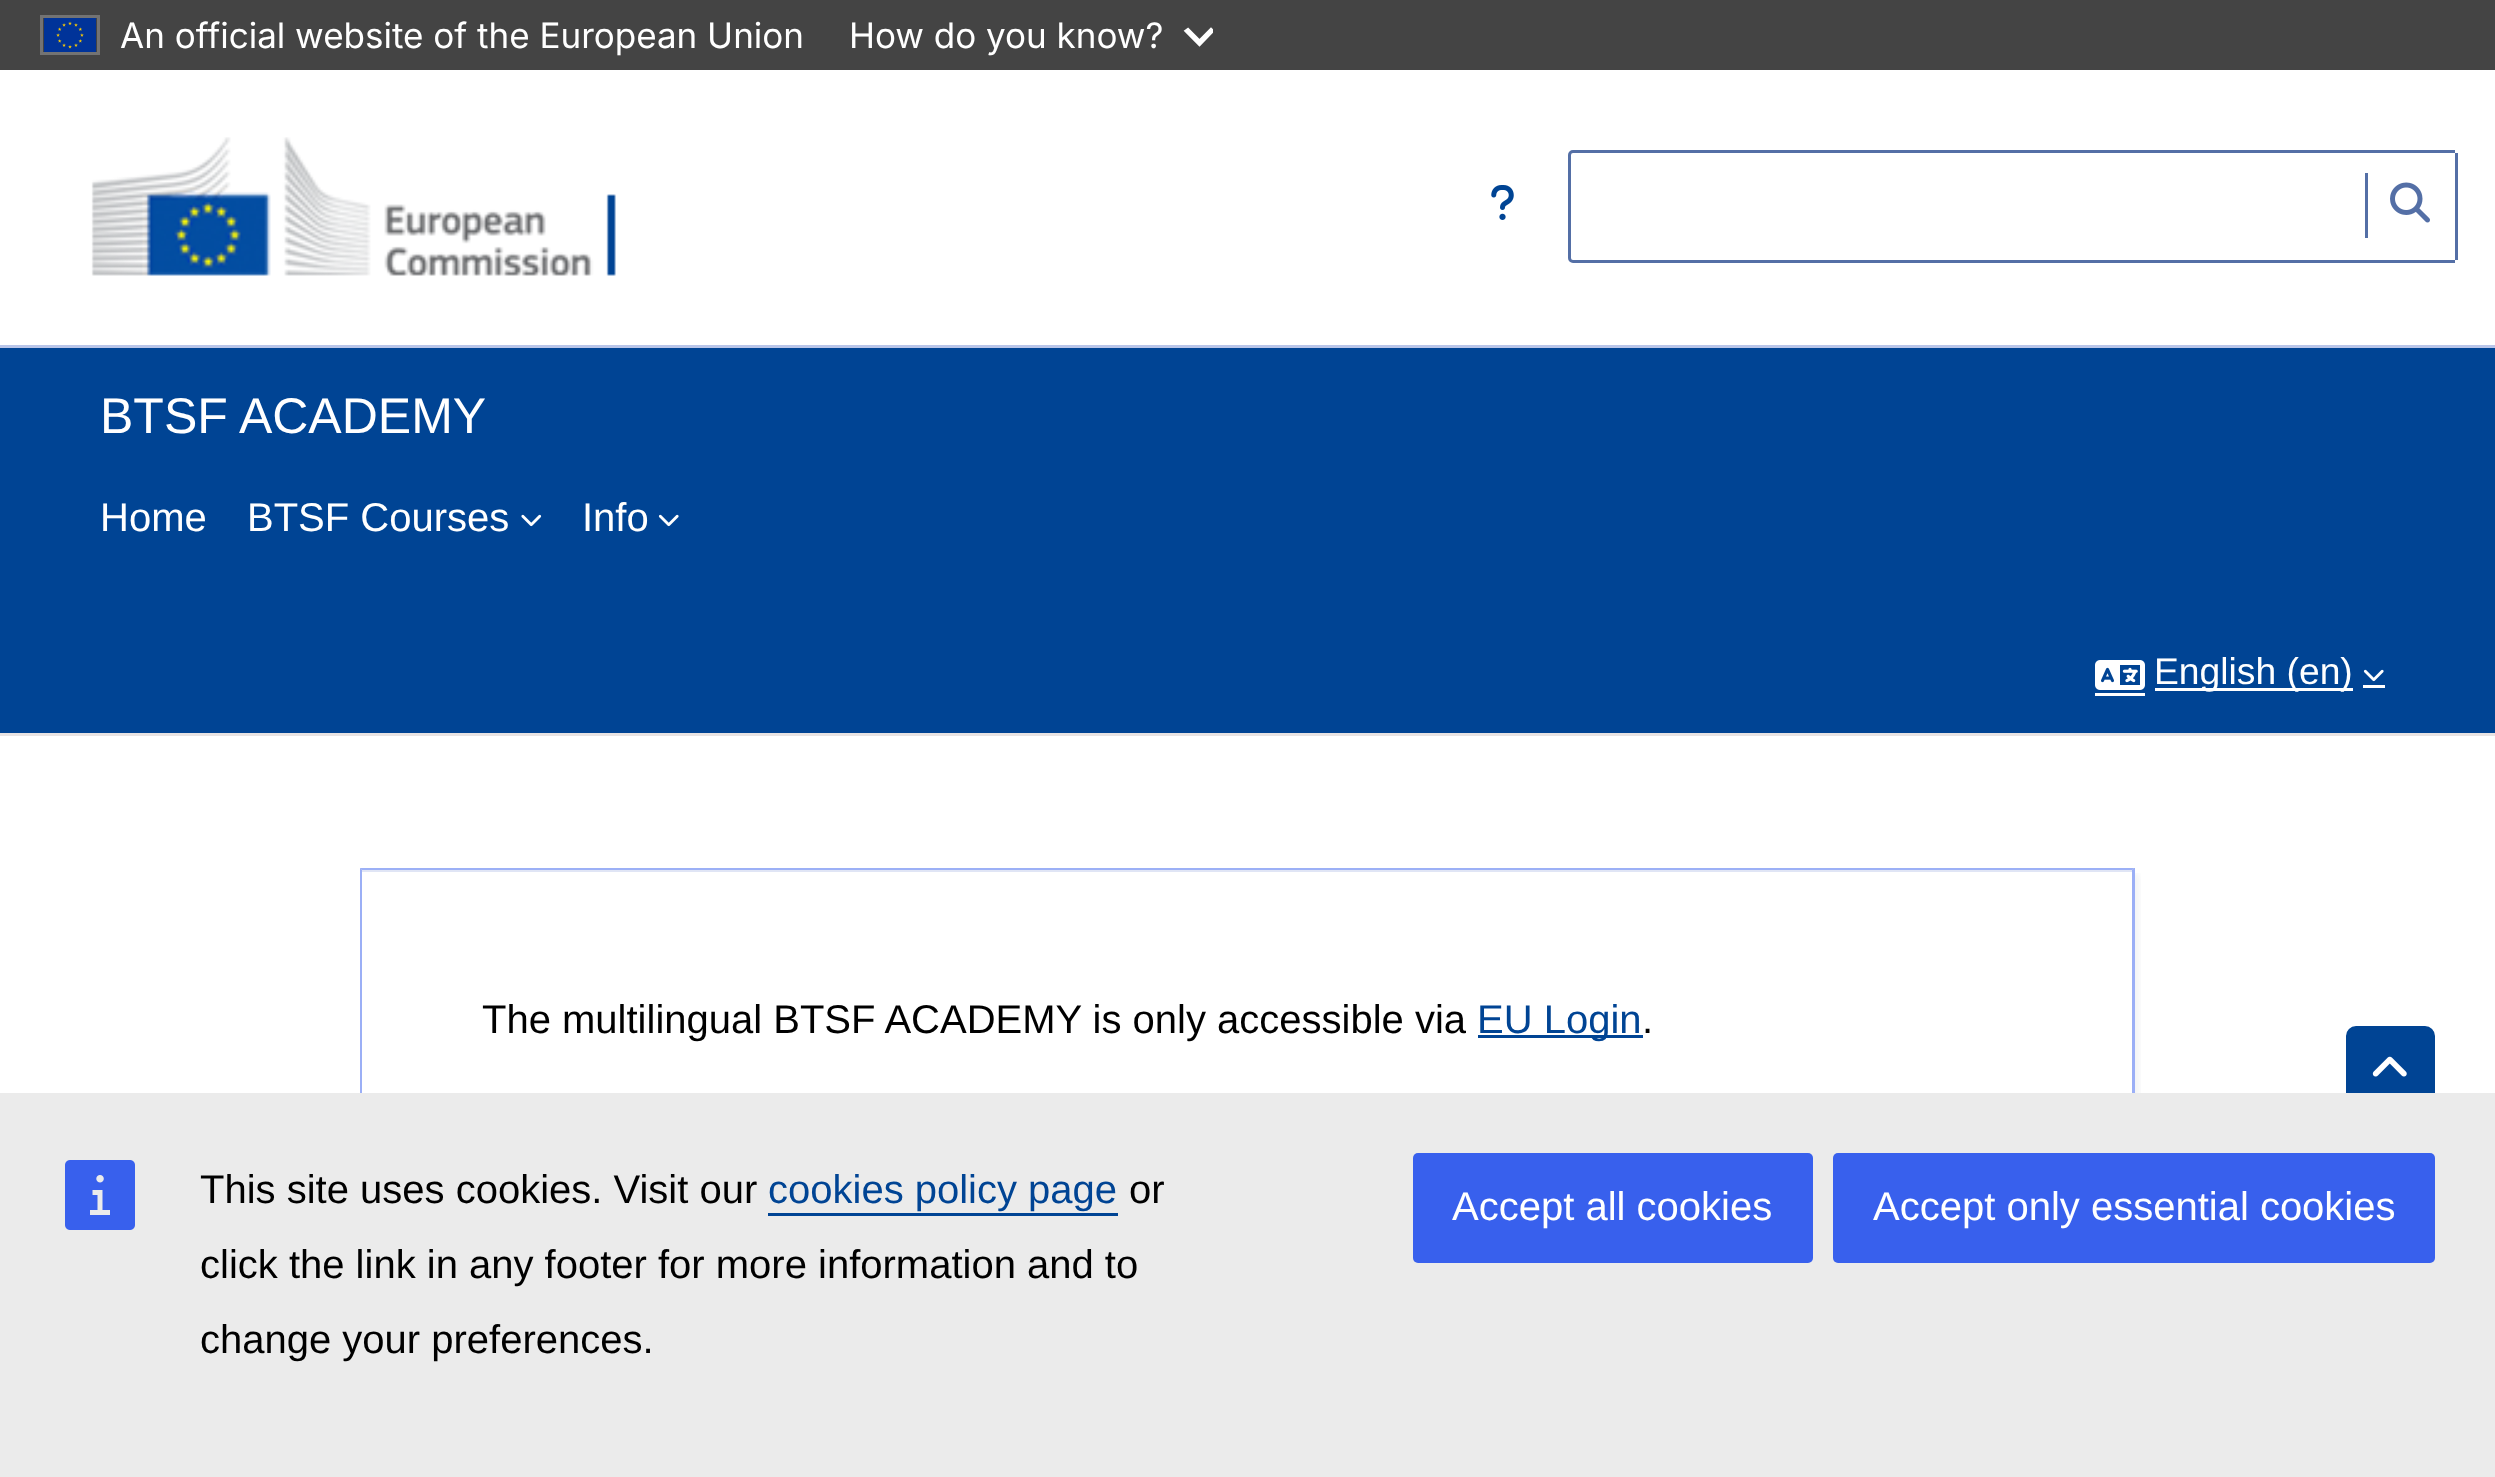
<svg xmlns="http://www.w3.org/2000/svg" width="2495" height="1477">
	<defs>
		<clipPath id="clip1"><rect x="1183" y="20" width="30" height="30" /></clipPath>
		<clipPath id="clip2"><rect x="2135" y="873" width="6" height="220" /></clipPath>
	</defs>
	<rect width="100%" height="100%" fill="#FFFFFF" />
	<rect x="0" y="0" width="2495" height="70" fill="#444444" />
	<rect x="41.5" y="16.5" width="57" height="37" fill="none" stroke="#737373" stroke-width="3" />
	<image x="44" y="18" width="52" height="34" href="assets/img1.png" />
	<g font-family="Inter" font-size="35" fill="#FFFFFF">
		<text x="120" y="48">An official website of the European Union</text>
		<text x="849" y="48">How do you know?</text>
	</g>
	<g clip-path="url(#clip1)">
		<path d="M1186 31L1188 29.5L1199.5 41L1211 29.5L1212.5 31L1199.5 44.5Z" fill="none" stroke="#FFFFFF" stroke-width="3.1" />
	</g>
	<image x="91" y="137" width="525" height="139" href="assets/img2.png" />
	<image x="1491" y="185" width="23" height="35" href="assets/img3.png" />
	<path d="M1573 151.5H2366.5V261.5H1573C1571 261.5 1569.5 260 1569.5 258V155C1569.5 153 1571 151.5 1573 151.5Z" fill="none" stroke="#546FA6" stroke-width="3" />
	<path d="M2365 150H2453C2456 150 2458 152 2458 155V258C2458 261 2456 263 2453 263H2365Z" fill="#FFFFFF" />
	<rect x="2365" y="150" width="90" height="3" fill="#546FA6" />
	<rect x="2455" y="153" width="3" height="107" fill="#546FA6" />
	<rect x="2365" y="260" width="90" height="3" fill="#546FA6" />
	<rect x="2365" y="173" width="3" height="65" fill="#546FA6" />
	<image x="2390" y="182" width="40" height="41" href="assets/img4.png" />
	<rect x="0" y="348" width="2495" height="385" fill="#004494" />
	<rect x="0" y="345" width="2495" height="3" fill="#B9C5E9" />
	<text x="100" y="433" font-family="Liberation Sans" font-size="50" fill="#FFFFFF">BTSF ACADEMY</text>
	<g font-family="Liberation Sans" font-size="40" fill="#FFFFFF">
		<text x="100" y="531">Home</text>
		<text x="247" y="531">BTSF Courses</text>
	</g>
	<image x="521" y="514" width="21" height="13" href="assets/img5.png" />
	<text x="582" y="531" font-family="Liberation Sans" font-size="40" fill="#FFFFFF">Info</text>
	<image x="658" y="514" width="21" height="13" href="assets/img6.png" />
	<rect x="0" y="733" width="2495" height="3" fill="#E8E3E3" />
	<image x="2095" y="660" width="50" height="30" href="assets/img7.png" />
	<rect x="2095" y="693" width="50" height="3" fill="#FFFFFF" />
	<rect x="2155" y="688" width="198" height="3" fill="#FFFFFF" />
	<text x="2154" y="684" font-family="Liberation Sans" font-size="37.25" fill="#FFFFFF">English (en)</text>
	<rect x="2363" y="685" width="22" height="3" fill="#FFFFFF" />
	<image x="2363" y="669" width="21" height="13" href="assets/img6.png" />
	<g clip-path="url(#clip2)">
		<rect x="365" y="873" width="1775" height="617" rx="5" fill="#26324B" fill-opacity="0.05" filter="blur(2.5px)" />
	</g>
	<path d="M362 870V872H2132V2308V870Z" fill="#E0E5F5" />
	<path d="M2134 868H360L362 870H2132Z" fill="#9CB0F6" />
	<path d="M2135 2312V868H2134L2132 870V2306L2134 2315Z" fill="#3860ED" fill-opacity="0.5" />
	<path d="M362 870V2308L361 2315L360 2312V868Z" fill="#3860ED" fill-opacity="0.5" />
	<text x="482" y="1033" font-family="Liberation Sans" font-size="40" fill="#000000">The multilingual BTSF ACADEMY is only accessible via</text>
	<rect x="1478" y="1035" width="165" height="3" fill="#004494" />
	<text x="1477" y="1033" font-family="Liberation Sans" font-size="40" fill="#004494">EU Login</text>
	<text x="1642" y="1033" font-family="Liberation Sans" font-size="40" fill="#000000">.</text>
	<rect x="2344.5" y="1024.5" width="92" height="92" rx="11.5" fill="#004494" stroke="#FFFFFF" stroke-width="3" />
	<image x="2372" y="1056" width="35" height="21" href="assets/img8.png" />
	<rect x="0" y="1093" width="2495" height="384" fill="#EBEBEB" />
	<image x="65" y="1160" width="70" height="70" href="assets/img9.png" />
	<text x="200" y="1203" font-family="Liberation Sans" font-size="40" fill="#000000">This site uses cookies. Visit our</text>
	<text x="768" y="1203" font-family="Liberation Sans" font-size="40" fill="#004494">cookies policy page</text>
	<rect x="768" y="1213" width="350" height="3" fill="#004494" />
	<g font-family="Liberation Sans" font-size="40" fill="#000000">
		<text x="1129" y="1203">or</text>
		<text x="200" y="1278">click the link in any footer for more information and to</text>
		<text x="200" y="1353">change your preferences.</text>
	</g>
	<rect x="1413" y="1153" width="400" height="110" rx="5" fill="#3860ED" />
	<text x="1452" y="1220" font-family="Liberation Sans" font-size="40" fill="#FFFFFF">Accept all cookies</text>
	<rect x="1833" y="1153" width="602" height="110" rx="5" fill="#3860ED" />
	<text x="1873" y="1220" font-family="Liberation Sans" font-size="40" fill="#FFFFFF">Accept only essential cookies</text>
</svg>
